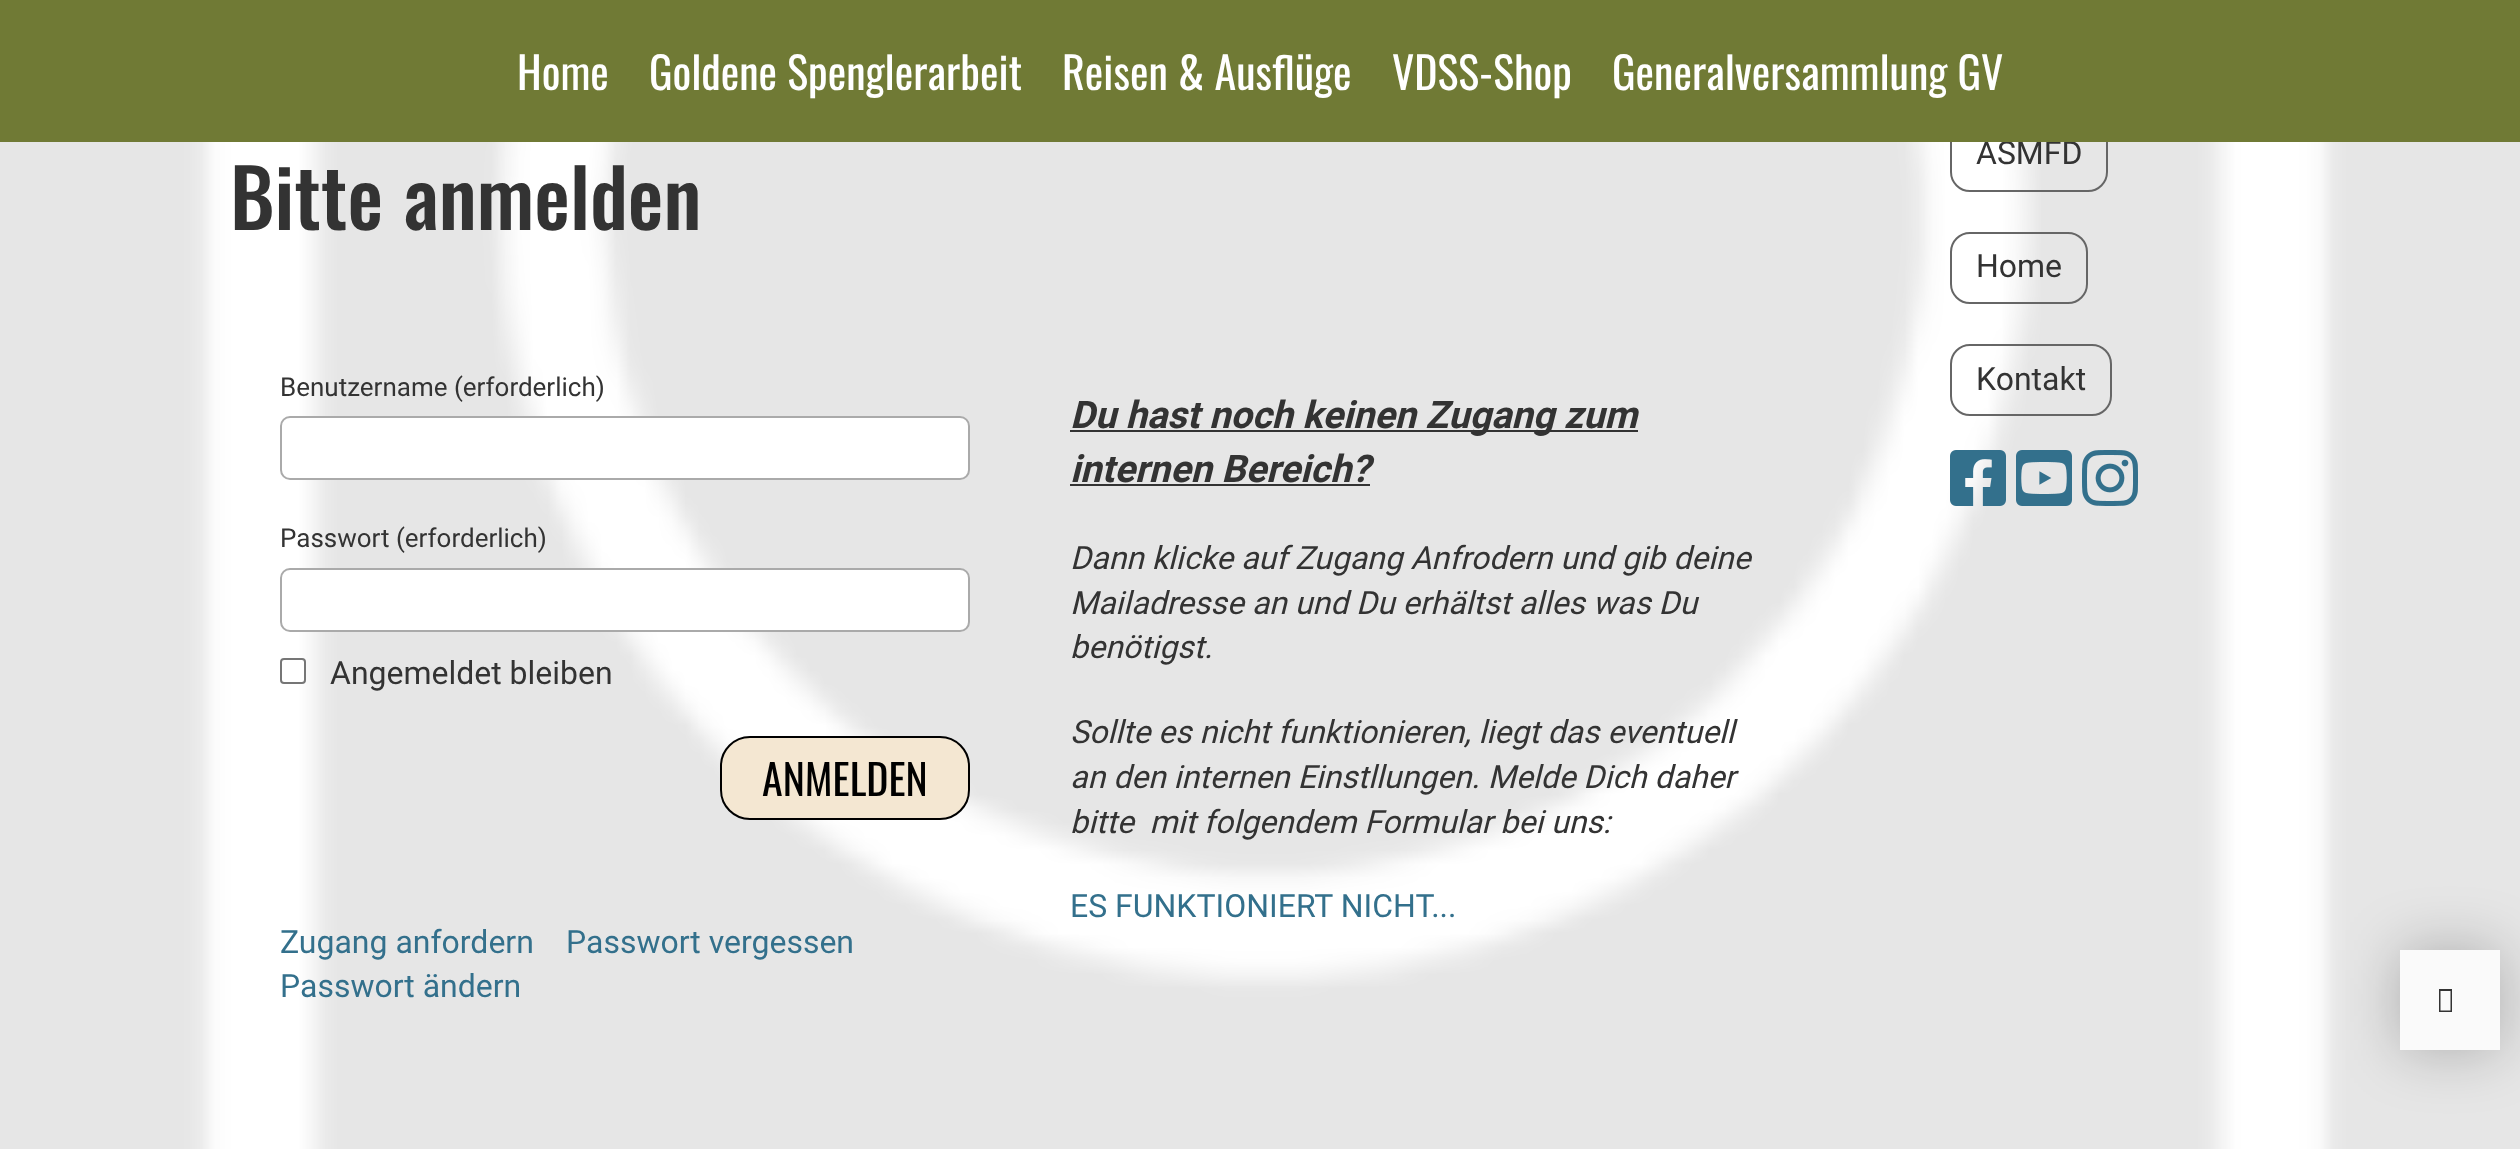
<svg xmlns="http://www.w3.org/2000/svg" width="2520" height="1149">
	<rect width="100%" height="100%" fill="#FFFFFF" />
	<image x="0" y="142" width="2520" height="1007" href="assets/img4.png" />
	<rect x="1951" y="119" width="156" height="72" rx="19" fill="none" stroke="#666666" stroke-width="2" />
	<text x="1976" y="164" font-family="Roboto" font-size="32" fill="#333333">ASMFD</text>
	<rect x="0" y="0" width="2520" height="142" fill="#707A35" />
	<g font-family="Oswald" font-size="44" fill="#FFFFFF">
		<text x="517" y="90">Home</text>
		<text x="649" y="90">Goldene Spenglerarbeit</text>
		<text x="1062" y="90">Reisen &amp; Ausflüge</text>
		<text x="1392" y="90">VDSS-Shop</text>
		<text x="1612" y="90">Generalversammlung GV</text>
	</g>
	<text x="230" y="230" font-family="Oswald" font-size="80" font-weight="500" fill="#333333">Bitte anmelden</text>
	<text x="280" y="396" font-family="Roboto" font-size="26" fill="#333333">Benutzername (erforderlich)</text>
	<rect x="281" y="417" width="688" height="62" rx="9" fill="#FFFFFF" stroke="#AAAAAA" stroke-width="2" />
	<text x="280" y="547" font-family="Roboto" font-size="26" fill="#333333">Passwort (erforderlich)</text>
	<rect x="281" y="569" width="688" height="62" rx="9" fill="#FFFFFF" stroke="#AAAAAA" stroke-width="2" />
	<rect x="281" y="659" width="24" height="24" rx="3" fill="#FFFFFF" stroke="#767676" stroke-width="2" />
	<text x="330" y="684" font-family="Roboto" font-size="32" fill="#333333">Angemeldet bleiben</text>
	<rect x="721" y="737" width="248" height="82" rx="29" fill="#F4E7D2" stroke="#000000" stroke-width="2" />
	<text x="762" y="796" font-family="Oswald" font-size="42" fill="#000000">ANMELDEN</text>
	<g font-family="Roboto" font-size="32" fill="#33708C">
		<text x="280" y="953">Zugang anfordern</text>
		<text x="566" y="953">Passwort vergessen</text>
		<text x="280" y="997">Passwort ändern</text>
	</g>
	<rect x="1070" y="430" width="568" height="2" fill="#333333" />
	<g font-family="Roboto" font-size="38" font-weight="700" font-style="italic" fill="#333333">
		<text x="1070" y="428">Du hast noch keinen Zugang zum</text>
		<text x="1070" y="482">internen Bereich?</text>
	</g>
	<rect x="1070" y="484" width="300" height="2" fill="#333333" />
	<g font-family="Roboto" font-size="32" font-style="italic" fill="#333333">
		<text x="1070" y="569">Dann klicke auf Zugang Anfrodern und gib deine</text>
		<text x="1070" y="614">Mailadresse an und Du erhältst alles was Du</text>
		<text x="1070" y="658">benötigst.</text>
		<text x="1070" y="743">Sollte es nicht funktionieren, liegt das eventuell</text>
		<text x="1070" y="788">an den internen Einstllungen. Melde Dich daher</text>
		<text x="1070" y="833" xml:space="preserve">bitte  mit folgendem Formular bei uns:</text>
	</g>
	<text x="1070" y="917" font-family="Roboto" font-size="32" fill="#33708C">ES FUNKTIONIERT NICHT...</text>
	<rect x="1951" y="233" width="136" height="70" rx="19" fill="none" stroke="#666666" stroke-width="2" />
	<text x="1976" y="277" font-family="Roboto" font-size="32" fill="#333333">Home</text>
	<rect x="1951" y="345" width="160" height="70" rx="19" fill="none" stroke="#666666" stroke-width="2" />
	<text x="1976" y="390" font-family="Roboto" font-size="32" fill="#333333">Kontakt</text>
	<image x="1950" y="450" width="56" height="56" href="assets/img1.png" />
	<image x="2016" y="450" width="56" height="56" href="assets/img2.png" />
	<image x="2082" y="450" width="56" height="56" href="assets/img3.png" />
	<rect x="2400" y="950" width="100" height="100" fill="#000000" fill-opacity="0.25" filter="blur(30px)" />
	<rect x="2400" y="950" width="100" height="100" fill="#FAFAFA" />
	<path d="M2439 1012V989H2452V1012ZM2440.5 1010.5H2450.5V991H2440.5Z" fill="#333333" />
</svg>
